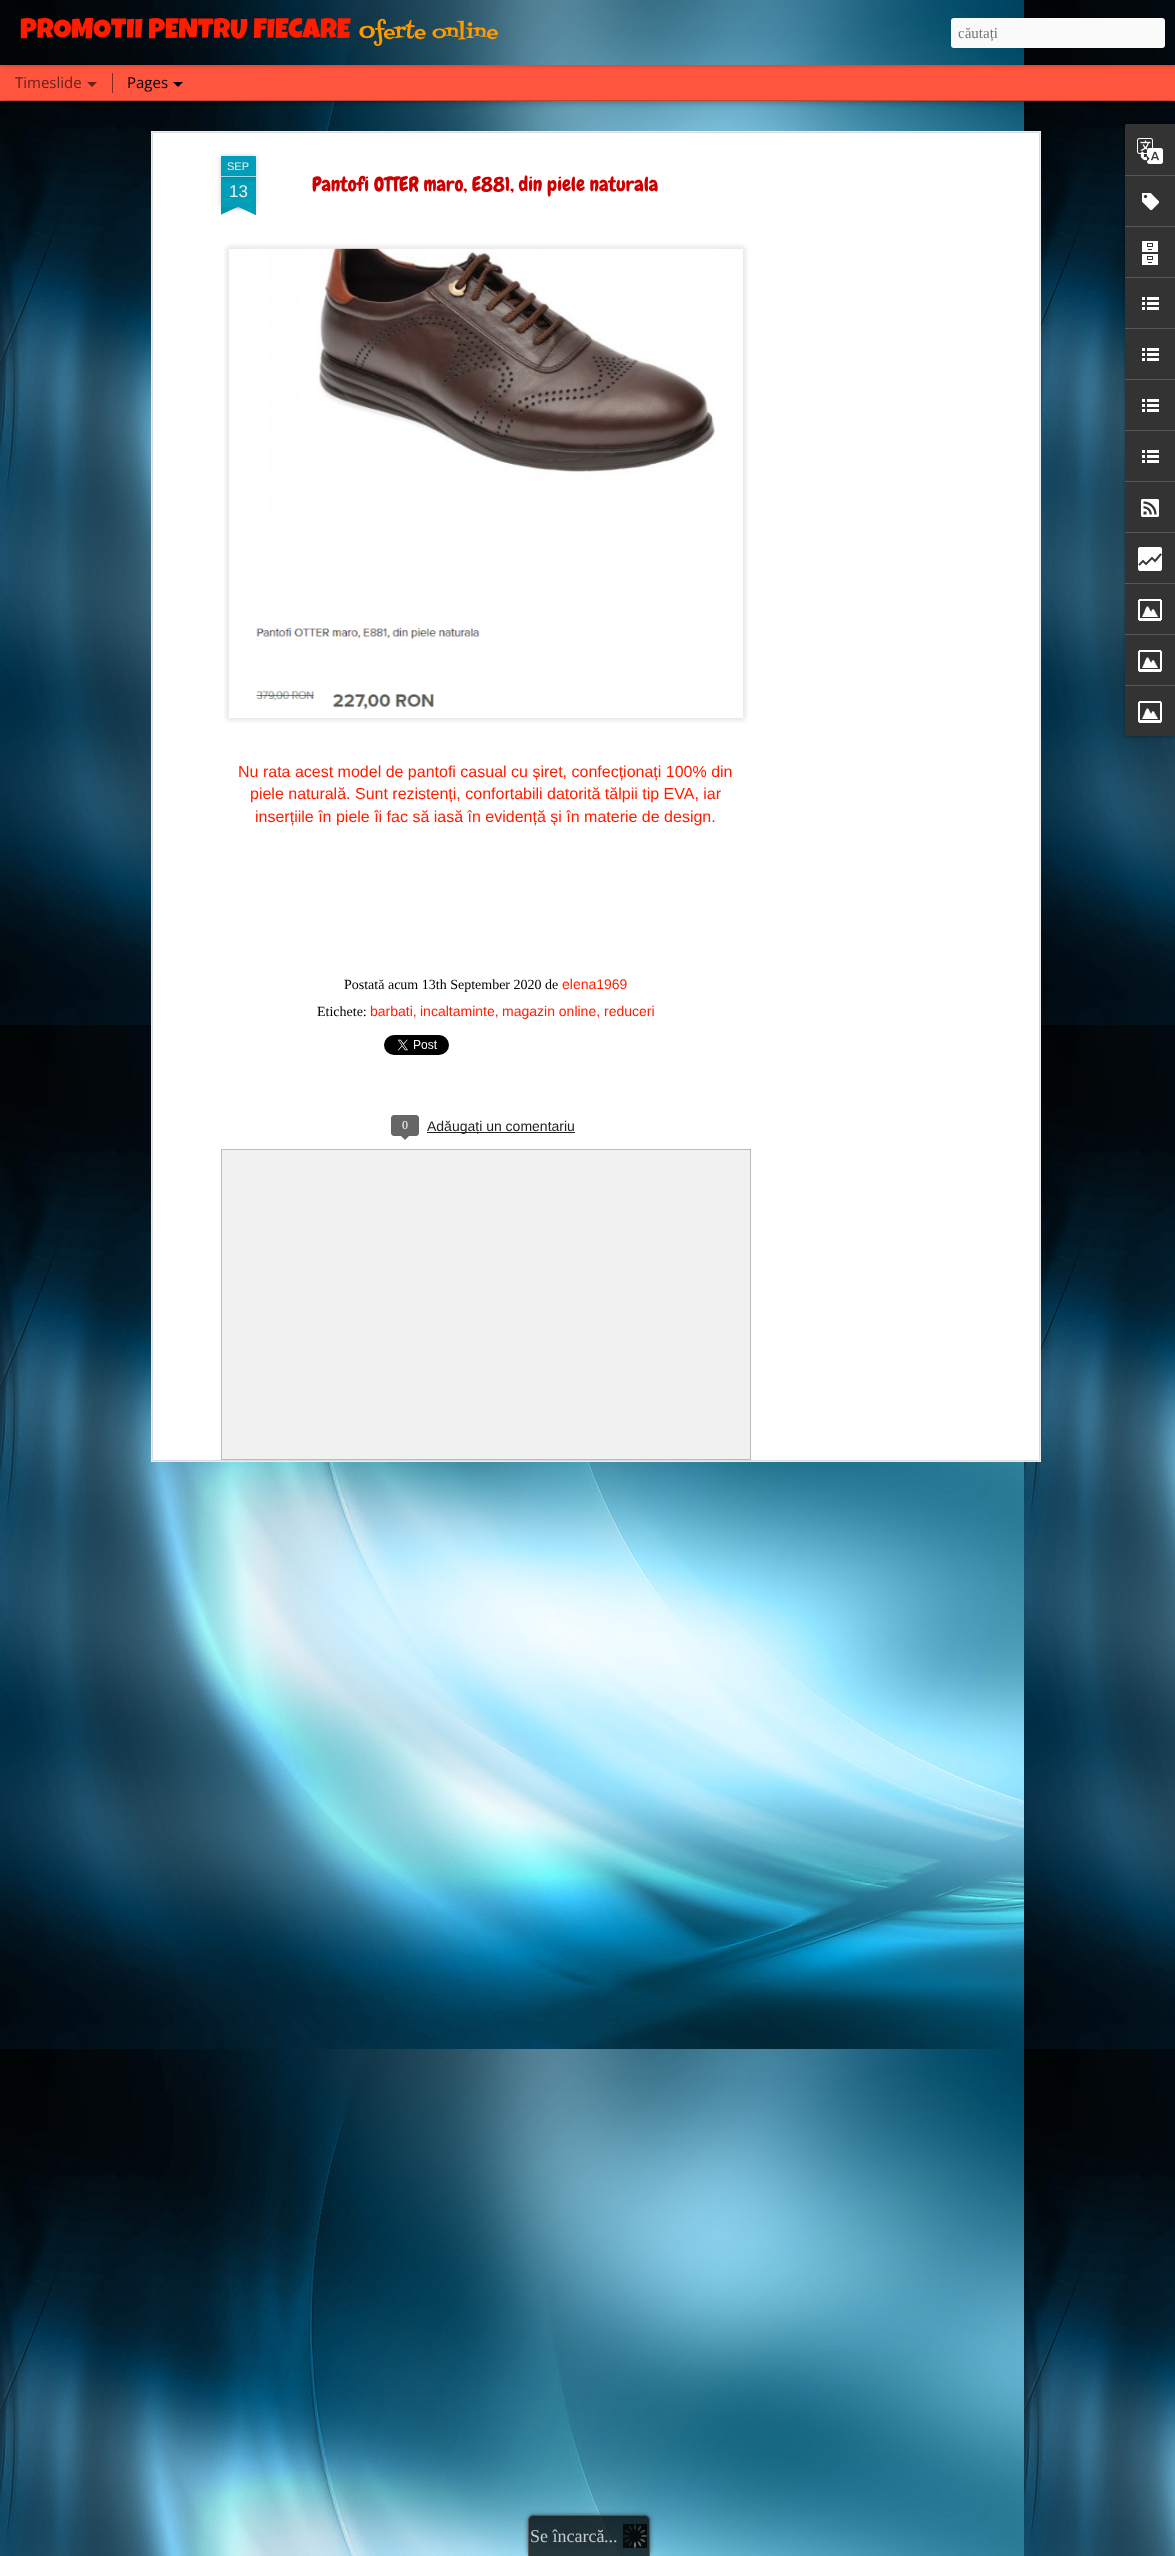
<svg xmlns="http://www.w3.org/2000/svg" width="1175" height="2556">
	<defs>
		<clipPath id="clip1"><rect x="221" y="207" width="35" height="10" /></clipPath>
		<clipPath id="clip2"><rect x="221" y="207" width="35" height="10" /></clipPath>
		<clipPath id="clip3"><path d="M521 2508H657V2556H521ZM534 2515H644C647.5 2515 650 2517.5 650 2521V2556H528V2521C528 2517.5 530.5 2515 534 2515Z" clip-rule="evenodd" /></clipPath>
	</defs>
	<rect width="100%" height="100%" fill="#FF553F" />
	<image x="0" y="101" width="1175" height="2455" href="assets/img2.png" />
	<rect x="0" y="65" width="1175" height="35" fill="#000000" fill-opacity="0.5" filter="blur(4px)" />
	<rect x="0" y="65" width="1175" height="35" fill="#FF553F" />
	<rect x="112" y="73" width="1" height="20" fill="#802B20" />
	<rect x="0" y="0" width="1175" height="65" fill="#000000" fill-opacity="0.3" filter="blur(2.5px)" />
	<image x="0" y="0" width="1175" height="65" href="assets/img1.png" />
	<text x="20" y="38" font-family="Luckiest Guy" font-size="28" fill="#FF1D00">PROMOTII PENTRU FIECARE</text>
	<text x="359" y="38" font-family="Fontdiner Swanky" font-size="20" fill="#FF9900">Oferte online</text>
	<rect x="951" y="18" width="214" height="30" rx="3" fill="#FAFAFA" />
	<text x="958" y="38" font-family="Liberation Serif" font-size="15" fill="#757575">căutați</text>
	<text x="15" y="88" font-family="Open Sans" font-size="15" fill="#662219">Timeslide</text>
	<path d="M87 82H97L92 87Z" fill="#662219" />
	<text x="127" y="88" font-family="Open Sans" font-size="15" fill="#000000">Pages</text>
	<path d="M173 82H183L178 87Z" fill="#000000" />
	<rect x="151" y="131" width="890" height="1331" fill="#FFFFFF" />
	<image x="151" y="131" width="890" height="1331" href="assets/img3.png" />
	<rect x="221" y="177" width="35" height="30" fill="#000000" fill-opacity="0.2" filter="blur(2.5px)" />
	<rect x="221" y="177" width="35" height="30" fill="#009EB8" />
	<rect x="221" y="156" width="35" height="21" rx="1" fill="#000000" fill-opacity="0.2" filter="blur(2.5px)" />
	<path d="M222 156H255C255.5 156 256 156.5 256 157V177H221V157C221 156.5 221.5 156 222 156Z" fill="#009EB8" />
	<rect x="221" y="176" width="35" height="1" fill="#99D8E3" />
	<text x="227" y="170" font-family="Liberation Sans" font-size="11" fill="#EEEEEE">SEP</text>
	<text x="229" y="197" font-family="Liberation Sans" font-size="17" fill="#EEEEEE">13</text>
	<g clip-path="url(#clip1)">
		<rect x="212" y="197" width="50" height="10" fill="#000000" fill-opacity="0.2" filter="blur(2.5px)" />
	</g>
	<g clip-path="url(#clip2)">
		<path d="M212 208L257 187L261 196L216 217Z" fill="#009EB8" />
	</g>
	<g clip-path="url(#clip1)">
		<rect x="215" y="197" width="50" height="10" fill="#000000" fill-opacity="0.2" filter="blur(2.5px)" />
	</g>
	<g clip-path="url(#clip2)">
		<path d="M219 187L264 208L260 217L215 196Z" fill="#009EB8" />
	</g>
	<text x="312" y="191" font-family="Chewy" font-size="20" fill="#CC0000">Pantofi OTTER maro, E881, din piele naturala</text>
	<image x="224" y="244" width="524" height="479" href="assets/img4.png" />
	<image x="255" y="248" width="460" height="462" href="assets/img5.png" />
	<g font-family="Liberation Sans" font-size="16" fill="#FF1D00">
		<text x="238" y="777">Nu rata acest model de pantofi casual cu șiret, confecționați 100% din</text>
		<text x="250" y="799">piele naturală. Sunt rezistenți, confortabili datorită tălpii tip EVA, iar</text>
		<text x="255" y="822">inserțiile în piele îi fac să iasă în evidență și în materie de design.</text>
	</g>
	<text x="344" y="989" font-family="Liberation Serif" font-size="14" fill="#000000">Postată acum 13th September 2020 de</text>
	<text x="562" y="989" font-family="Liberation Sans" font-size="14" fill="#FF1D00">elena1969</text>
	<text x="317" y="1016" font-family="Liberation Serif" font-size="14" fill="#000000">Etichete:</text>
	<g font-family="Liberation Sans" font-size="14" fill="#FF1D00">
		<text x="370" y="1016">barbati,</text>
		<text x="420" y="1016">incaltaminte,</text>
		<text x="502" y="1016">magazin online,</text>
		<text x="604" y="1016">reduceri</text>
	</g>
	<image x="384" y="1035" width="65" height="20" href="assets/img6.png" />
	<rect x="391.5" y="1115.5" width="27" height="20" rx="2.5" fill="#666666" stroke="#666666" />
	<text x="402" y="1129" font-family="Liberation Serif" font-size="12" fill="#FFFFFF">0</text>
	<path d="M400 1135H410L405 1140Z" fill="#666666" />
	<rect x="427" y="1132" width="148" height="1" fill="#222222" />
	<text x="427" y="1131" font-family="Liberation Sans" font-size="14" fill="#222222">Adăugați un comentariu</text>
	<rect x="221.5" y="1149.5" width="529" height="310" fill="#F1F1F1" stroke="#BBBBBB" />
	<rect x="1125" y="125" width="50" height="612" rx="2" fill="#000000" fill-opacity="0.3" filter="blur(1.5px)" />
	<path d="M1127 124H1175V736H1127C1126 736 1125 735 1125 734V126C1125 125 1126 124 1127 124Z" fill="#333333" />
	<path d="M1127 124H1175V175H1125V126C1125 125 1126 124 1127 124Z" fill="#333333" />
	<image x="1137" y="138" width="26" height="26" href="assets/img7.png" />
	<rect x="1125" y="175" width="50" height="1" fill="#585858" />
	<image x="1142" y="193" width="17" height="17" href="assets/img8.png" />
	<rect x="1125" y="226" width="50" height="1" fill="#585858" />
	<image x="1142" y="241" width="16" height="24" href="assets/img9.png" />
	<rect x="1125" y="277" width="50" height="1" fill="#585858" />
	<image x="1142" y="297" width="17" height="13" href="assets/img10.png" />
	<rect x="1125" y="328" width="50" height="1" fill="#585858" />
	<image x="1142" y="348" width="17" height="13" href="assets/img10.png" />
	<rect x="1125" y="379" width="50" height="1" fill="#585858" />
	<image x="1142" y="399" width="17" height="13" href="assets/img10.png" />
	<rect x="1125" y="430" width="50" height="1" fill="#585858" />
	<image x="1142" y="450" width="17" height="13" href="assets/img10.png" />
	<rect x="1125" y="481" width="50" height="1" fill="#585858" />
	<image x="1141" y="499" width="18" height="18" href="assets/img11.png" />
	<rect x="1125" y="532" width="50" height="1" fill="#585858" />
	<image x="1138" y="547" width="24" height="24" href="assets/img12.png" />
	<rect x="1125" y="583" width="50" height="1" fill="#585858" />
	<image x="1138" y="599" width="24" height="22" href="assets/img13.png" />
	<rect x="1125" y="634" width="50" height="1" fill="#585858" />
	<image x="1138" y="650" width="24" height="22" href="assets/img13.png" />
	<path d="M1125 685H1175V736H1127C1126 736 1125 735 1125 734Z" fill="#333333" />
	<rect x="1125" y="685" width="50" height="1" fill="#585858" />
	<image x="1138" y="701" width="24" height="22" href="assets/img13.png" />
	<g clip-path="url(#clip3)">
		<rect x="528" y="2515" width="122" height="41" rx="6" fill="#333333" fill-opacity="0.75" filter="blur(2px)" />
	</g>
	<path d="M534 2515H644C647.5 2515 650 2517.5 650 2521V2556H528V2521C528 2517.5 530.5 2515 534 2515Z" fill="#000000" fill-opacity="0.75" />
	<path d="M534 2515H644C647 2515 650 2518 650 2521V2556H528V2521C528 2518 531 2515 534 2515ZM534 2516H644C647 2516 649 2518 649 2521V2556H529V2521C529 2518 531 2516 534 2516Z" fill="#666666" fill-opacity="0.75" fill-rule="evenodd" />
	<image x="623" y="2524" width="24" height="24" href="assets/img14.png" />
	<g font-family="Liberation Serif" font-size="18" fill="#C7CCCD">
		<text x="530" y="2542">Se încarcă</text>
		<text x="604" y="2542">...</text>
	</g>
</svg>
